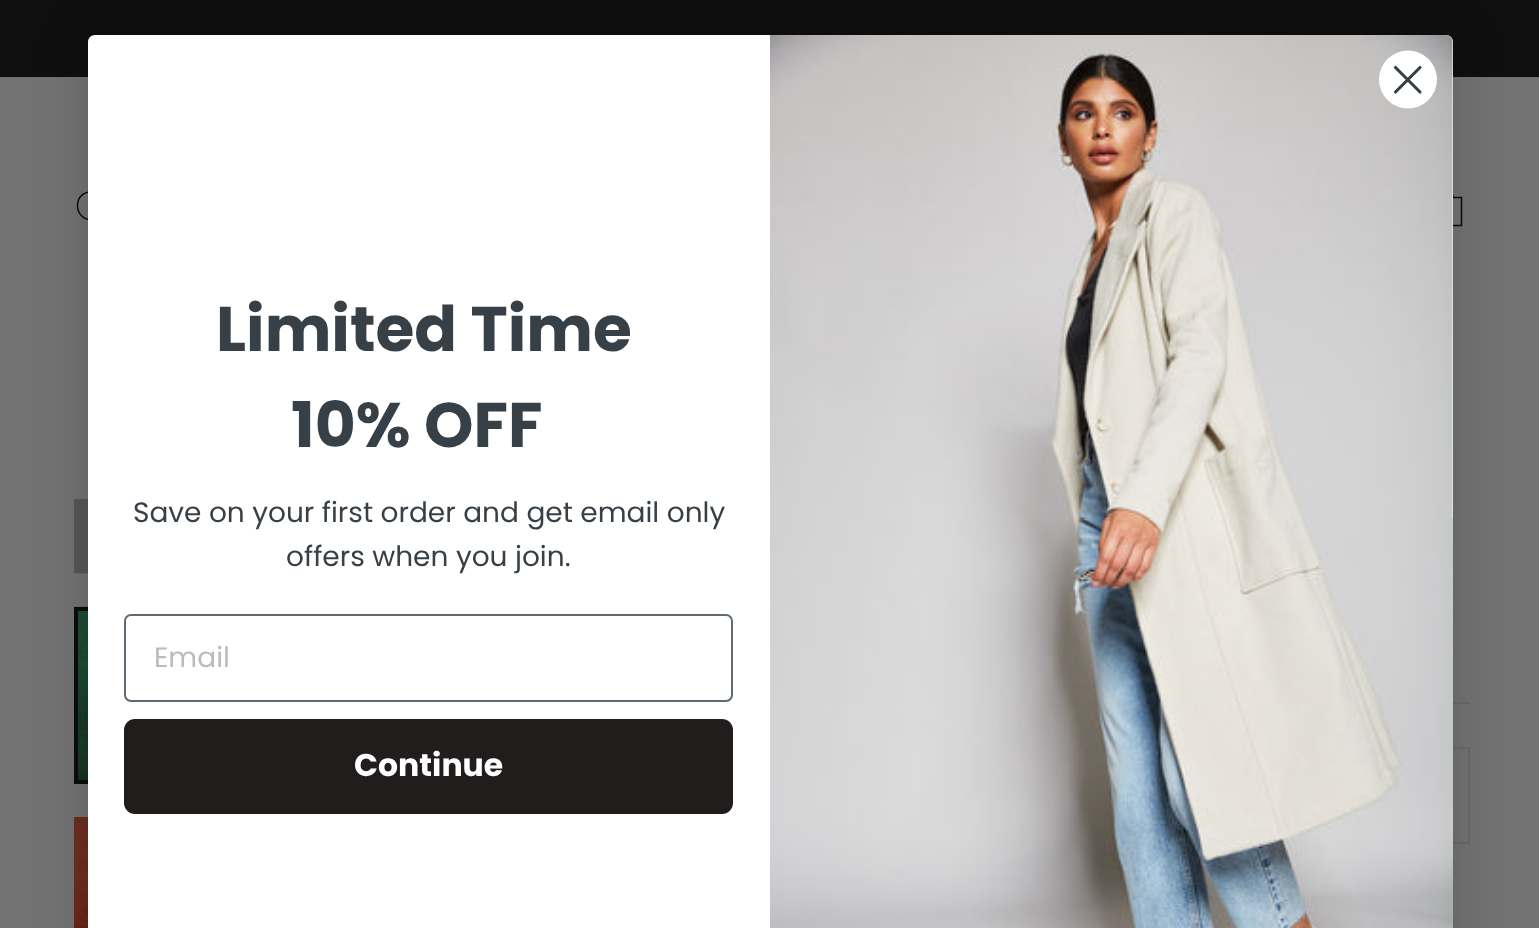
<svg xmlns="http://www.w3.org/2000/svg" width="1539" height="928">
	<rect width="100%" height="100%" fill="#727272" />
	<rect x="0" y="0" width="1539" height="77" fill="#0F0F0F" />
	<path d="M106 205.5C106 224.5 77.5 224.5 77.5 205.5C77.5 187 106 187 106 205.5ZM111.5 225L102 216" fill="none" stroke="#0C0C0C" stroke-width="1.5" />
	<path d="M1429.5 197.5H1461.5V225.5H1429.5ZM1438 197.5C1438 192 1441.5 190.5 1445.5 190.5C1449.5 190.5 1453 192 1453 197.5" fill="none" stroke="#0C0C0C" stroke-width="1.5" />
	<image x="74" y="499" width="14" height="75" href="assets/img1.png" />
	<image x="74" y="606" width="14" height="174" href="assets/img2.png" />
	<rect x="76" y="609" width="129" height="173" fill="none" stroke="#0C0C0C" stroke-width="4" />
	<image x="74" y="817" width="14" height="111" href="assets/img3.png" />
	<rect x="1453" y="702" width="17" height="2" fill="#696966" />
	<rect x="1453" y="842" width="17" height="2" fill="#696966" />
	<rect x="1453" y="747" width="17" height="2" fill="#696966" />
	<rect x="1468" y="747" width="2" height="95" fill="#696966" />
	<rect x="88" y="35" width="1365" height="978" rx="7" fill="#000000" fill-opacity="0.15" filter="blur(26px)" />
	<path d="M95 35H1446C1450 35 1453 38 1453 42V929H88V42C88 38 91 35 95 35Z" fill="#FFFFFF" />
	<image x="770" y="35" width="683" height="893" href="assets/img4.png" />
	<circle cx="1408" cy="79.5" r="29" fill="#FFFFFF" />
	<path d="M1395.5 67.5L1420 92M1395.5 92L1420 67.5Z" fill="none" stroke="#373F47" stroke-width="3.1" stroke-linecap="round" stroke-linejoin="round" />
	<g font-family="Poppins" font-size="63" font-weight="700" fill="#373F47">
		<text x="216" y="351">Limited Time</text>
		<text x="291" y="447">10% OFF</text>
	</g>
	<g font-family="Poppins" font-size="28" fill="#373F47">
		<text x="133" y="522">Save on your first order and get email only</text>
		<text x="286" y="566">offers when you join.</text>
	</g>
	<rect x="125" y="615" width="607" height="86" rx="6" fill="none" stroke="#606A72" stroke-width="2" />
	<text x="154" y="667" font-family="Poppins" font-size="28" fill="#BBBBBB">Email</text>
	<rect x="124" y="719" width="609" height="95" rx="11" fill="#211D1C" />
	<text x="354" y="776" font-family="Poppins" font-size="31.5" font-weight="700" fill="#FFFFFF">Continue</text>
</svg>
